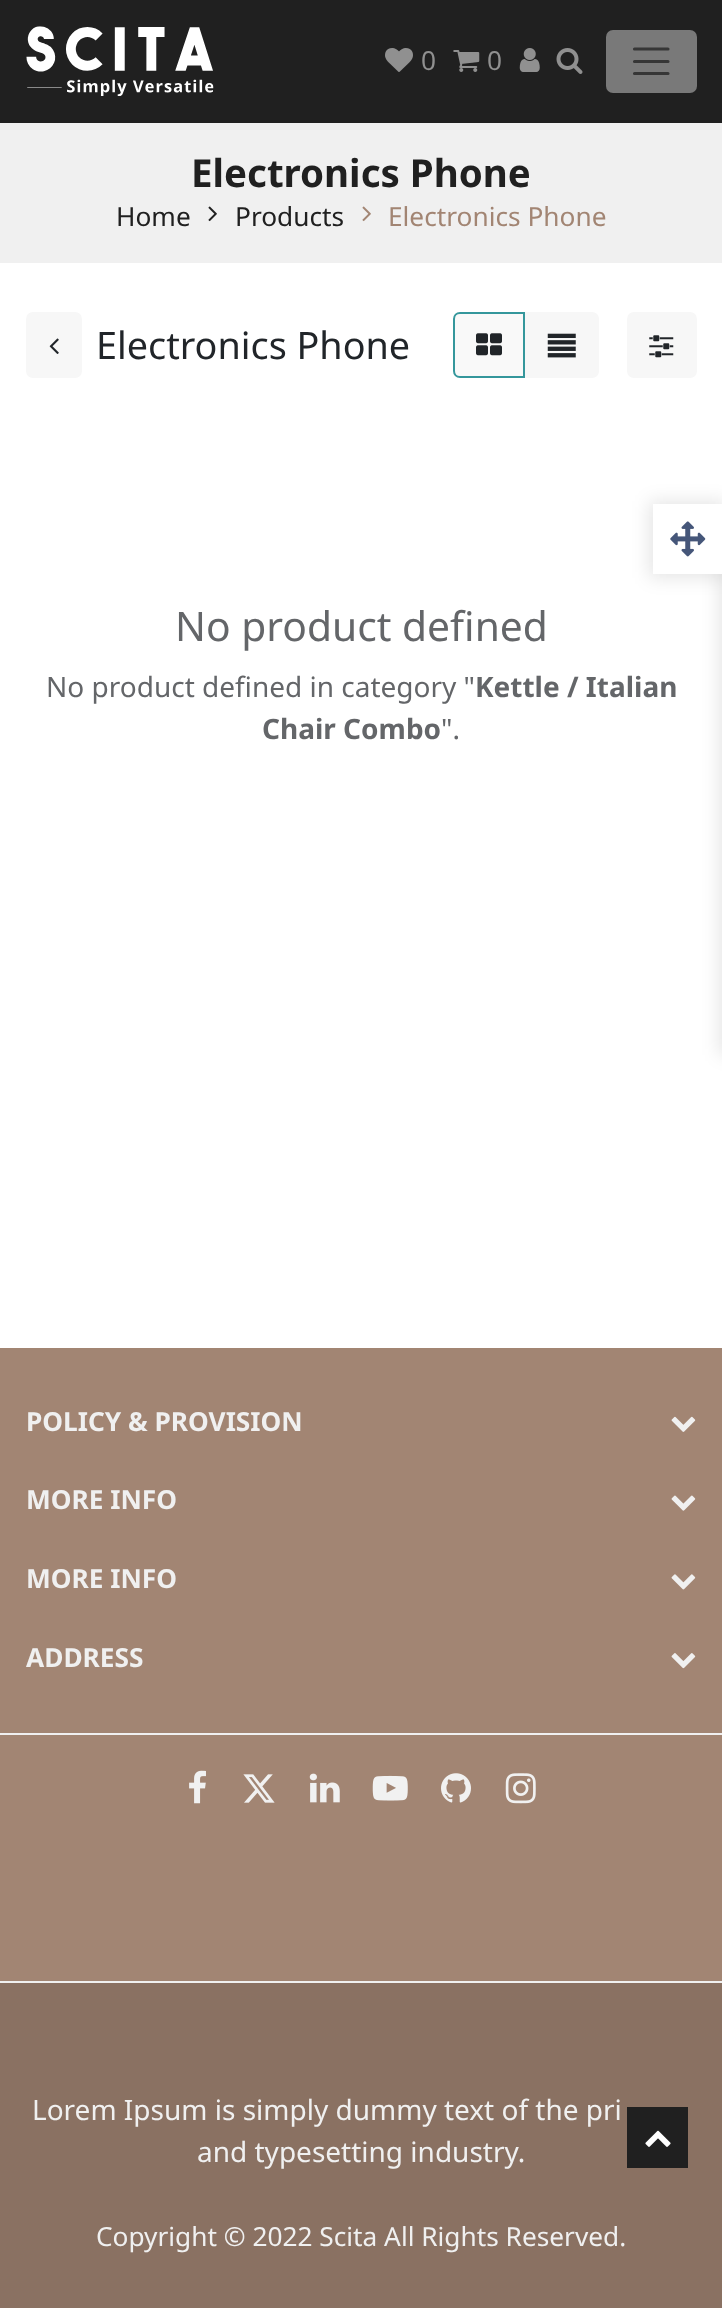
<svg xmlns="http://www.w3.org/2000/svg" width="722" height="2308">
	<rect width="100%" height="100%" fill="#FFFFFF" />
	<rect x="0" y="0" width="722" height="123" fill="#202020" />
	<image x="26" y="26" width="188" height="70" href="assets/img1.png" />
	<image x="385" y="48" width="28" height="24" href="assets/img2.png" />
	<text x="421" y="70" font-family="Noto Sans" font-size="26.25" fill="#909090">0</text>
	<image x="453" y="50" width="27" height="22" href="assets/img3.png" />
	<text x="487" y="70" font-family="Noto Sans" font-size="26.25" fill="#909090">0</text>
	<image x="519" y="48" width="21" height="24" href="assets/img4.png" />
	<image x="556" y="48" width="27" height="26" href="assets/img5.png" />
	<rect x="606" y="30" width="91" height="63" rx="7" fill="#797979" />
	<path d="M634.5 49H668M634.5 61.5H668M634.5 73.5H668" fill="none" stroke="#363636" stroke-width="3.1" stroke-linecap="round" />
	<rect x="0" y="123" width="722" height="140" fill="#F0F0F0" />
	<text x="191" y="187" font-family="Noto Sans" font-size="38.5" font-weight="700" fill="#202020">Electronics Phone</text>
	<text x="116" y="226" font-family="Noto Sans" font-size="26.25" fill="#202020">Home</text>
	<image x="208" y="206" width="9" height="16" href="assets/img6.png" />
	<text x="235" y="226" font-family="Noto Sans" font-size="26.25" fill="#202020">Products</text>
	<image x="362" y="206" width="9" height="16" href="assets/img7.png" />
	<text x="388" y="226" font-family="Noto Sans" font-size="26.25" fill="#A28573">Electronics Phone</text>
	<rect x="26" y="312" width="56" height="66" rx="7" fill="#F7F7F7" />
	<image x="49" y="338" width="10" height="16" href="assets/img8.png" />
	<text x="96" y="359" font-family="Noto Sans" font-size="37.75" fill="#212529">Electronics Phone</text>
	<path d="M460 313H524V377H460C456.5 377 454 374.5 454 371V319C454 315.5 456.5 313 460 313Z" fill="#F9F9F9" stroke="#35979C" stroke-width="2" />
	<image x="476" y="333" width="26" height="23" href="assets/img9.png" />
	<path d="M525 312H592C596 312 599 315 599 319V371C599 375 596 378 592 378H525Z" fill="#F7F7F7" />
	<image x="547" y="333" width="29" height="25" href="assets/img10.png" />
	<rect x="627" y="312" width="70" height="66" rx="7" fill="#F7F7F7" />
	<image x="649" y="335" width="25" height="23" href="assets/img11.png" />
	<text x="175" y="641" font-family="Noto Sans" font-size="40.75" fill="#646669">No product defined</text>
	<text x="46" y="697" font-family="Noto Sans" font-size="28" fill="#646669">No product defined in category "</text>
	<g font-family="Noto Sans" font-size="28" font-weight="700" fill="#646669">
		<text x="475" y="697">Kettle / Italian</text>
		<text x="262" y="739">Chair Combo</text>
	</g>
	<text x="441" y="739" font-family="Noto Sans" font-size="28" fill="#646669">".</text>
	<rect x="719" y="536" width="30" height="519" fill="#000000" fill-opacity="0.1" filter="blur(9px)" />
	<rect x="649" y="501" width="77" height="77" fill="#000000" fill-opacity="0.1" filter="blur(9px)" />
	<rect x="653" y="504" width="69" height="70" fill="#FFFFFF" />
	<image x="670" y="521" width="36" height="36" href="assets/img12.png" />
	<rect x="0" y="1348" width="722" height="633" fill="#A28573" />
	<text x="26" y="1431" font-family="Noto Sans" font-size="26.25" font-weight="700" fill="#F0F0F0">POLICY &amp; PROVISION</text>
	<image x="671" y="1416" width="25" height="16" href="assets/img13.png" />
	<text x="26" y="1509" font-family="Noto Sans" font-size="26.25" font-weight="700" fill="#F0F0F0">MORE INFO</text>
	<image x="671" y="1495" width="25" height="16" href="assets/img14.png" />
	<text x="26" y="1588" font-family="Noto Sans" font-size="26.25" font-weight="700" fill="#F0F0F0">MORE INFO</text>
	<image x="671" y="1574" width="25" height="16" href="assets/img15.png" />
	<text x="26" y="1667" font-family="Noto Sans" font-size="26.25" font-weight="700" fill="#F0F0F0">ADDRESS</text>
	<image x="671" y="1653" width="25" height="16" href="assets/img16.png" />
	<rect x="0" y="1733" width="722" height="2" fill="#F0F0F0" />
	<image x="189" y="1770" width="17" height="34" href="assets/img17.png" />
	<image x="243" y="1774" width="32" height="29" href="assets/img18.png" />
	<image x="309" y="1773" width="31" height="30" href="assets/img19.png" />
	<image x="372" y="1775" width="36" height="26" href="assets/img20.png" />
	<image x="441" y="1773" width="30" height="30" href="assets/img21.png" />
	<image x="505" y="1773" width="31" height="31" href="assets/img22.png" />
	<rect x="0" y="1981" width="722" height="2" fill="#F0F0F0" />
	<rect x="0" y="1983" width="722" height="325" fill="#8A7162" />
	<g font-family="Noto Sans" font-size="28" fill="#F0F0F0">
		<text x="32" y="2120">Lorem Ipsum is simply dummy text of the pri</text>
		<text x="197" y="2162">and typesetting industry.</text>
	</g>
	<text x="96" y="2246" font-family="Noto Sans" font-size="26.25" fill="#F0F0F0">Copyright © 2022 Scita All Rights Reserved.</text>
	<rect x="627" y="2107" width="61" height="61" fill="#202020" />
	<image x="645" y="2130" width="26" height="17" href="assets/img23.png" />
</svg>
